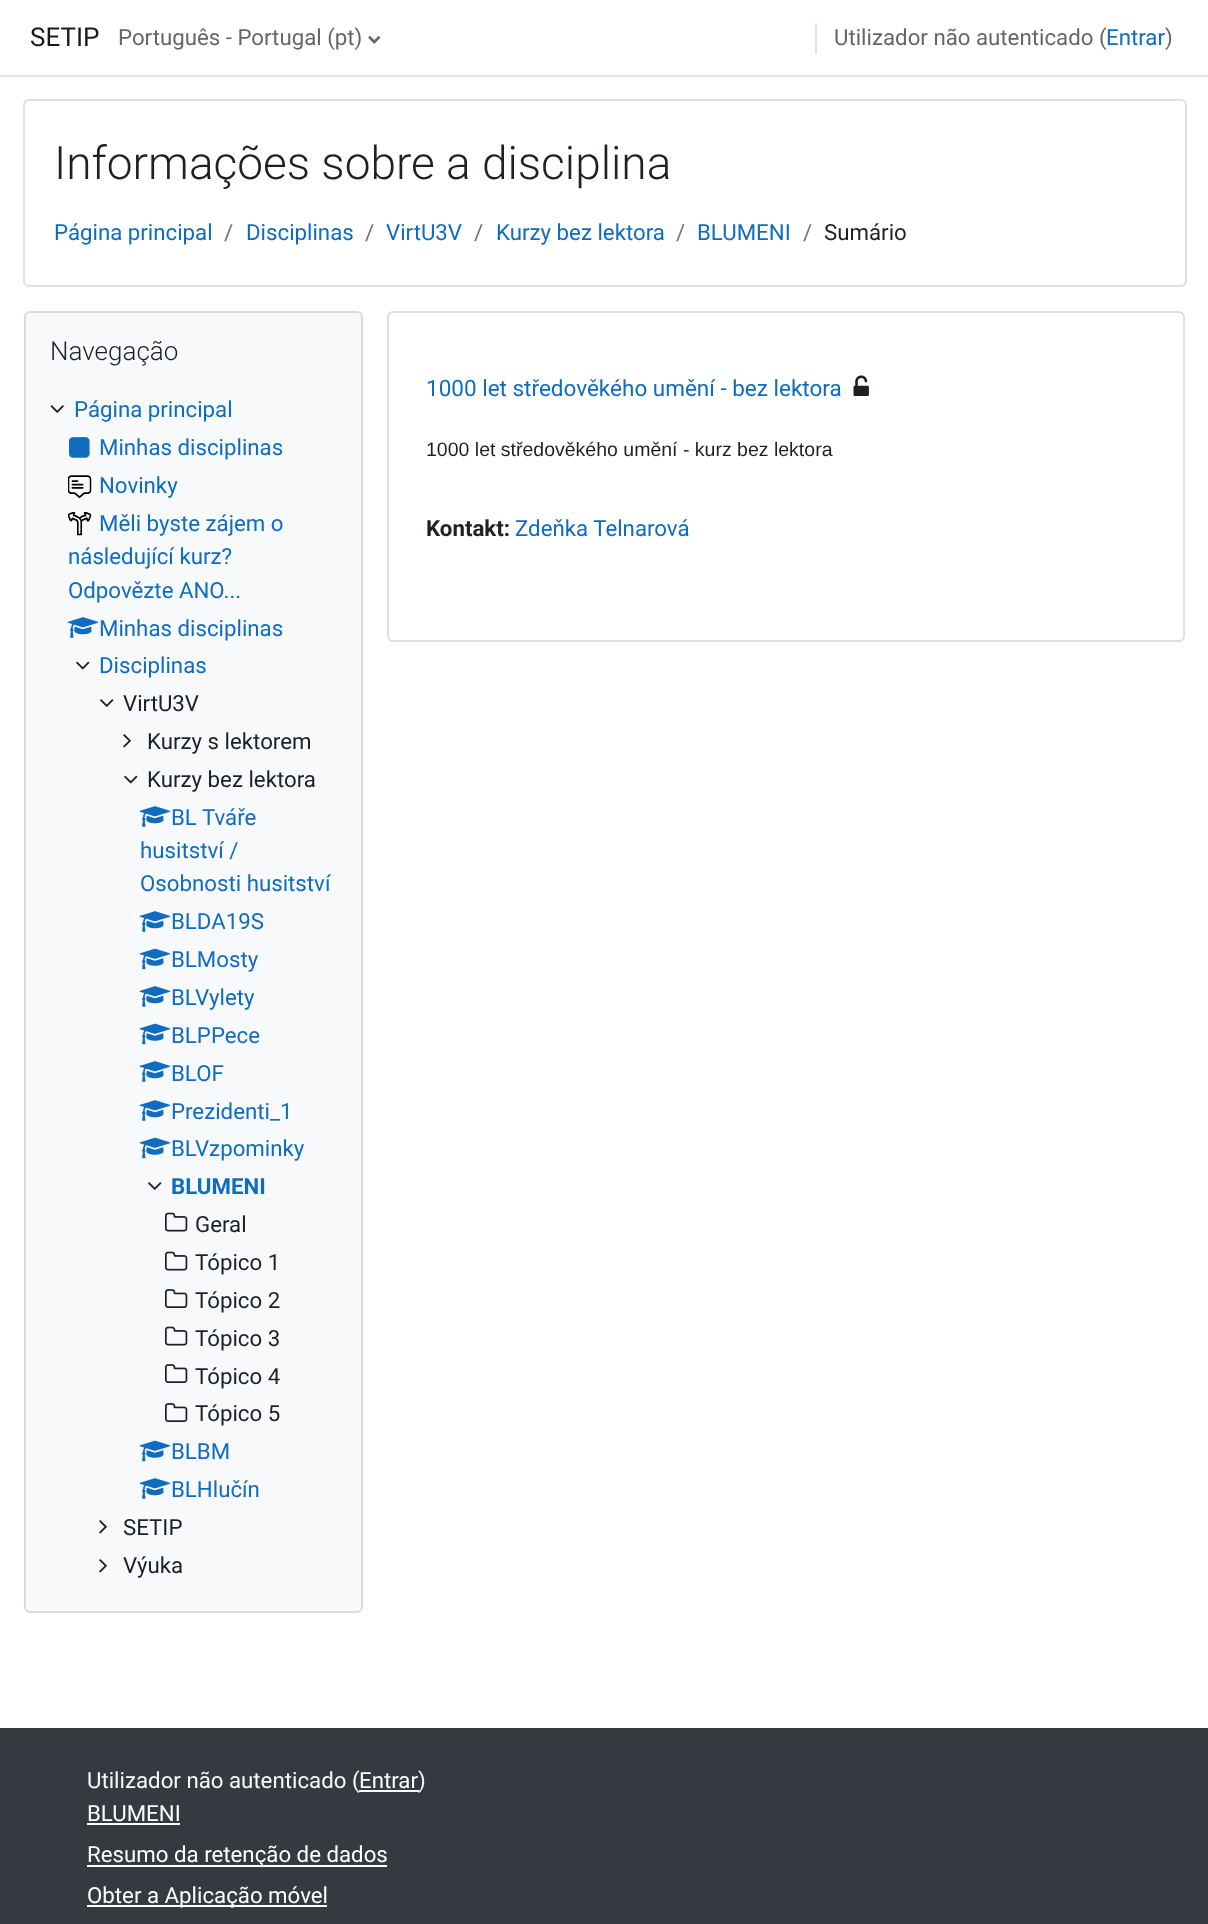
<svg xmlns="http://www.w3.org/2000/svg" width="1208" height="1924">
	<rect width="100%" height="100%" fill="#FFFFFF" />
	<rect x="0" y="75" width="1208" height="2" fill="#DEE2E6" />
	<text x="30" y="46" font-family="Roboto" font-size="26" fill="#1A1A1A">SETIP</text>
	<text x="118" y="45" font-family="Roboto" font-size="22.25" fill="#666666">Português - Portugal (pt)</text>
	<image x="368" y="36" width="13" height="8" href="assets/img1.png" />
	<rect x="815" y="23" width="2" height="31" fill="#DEE2E6" />
	<text x="834" y="45" font-family="Roboto" font-size="22.25" fill="#666666">Utilizador não autenticado (</text>
	<text x="1106" y="45" font-family="Roboto" font-size="22.25" fill="#0F6CBF">Entrar</text>
	<text x="1165" y="45" font-family="Roboto" font-size="22.25" fill="#666666">)</text>
	<rect x="24" y="100" width="1162" height="186" rx="5" fill="none" stroke="#DFDFDF" stroke-width="2" />
	<text x="54" y="179" font-family="Roboto" font-size="46" font-weight="300" fill="#1D2125">Informações sobre a disciplina</text>
	<text x="54" y="240" font-family="Roboto" font-size="22.25" fill="#0F6CBF">Página principal</text>
	<text x="224" y="240" font-family="Roboto" font-size="22.25" fill="#6A737B">/</text>
	<text x="246" y="240" font-family="Roboto" font-size="22.25" fill="#0F6CBF">Disciplinas</text>
	<text x="365" y="240" font-family="Roboto" font-size="22.25" fill="#6A737B">/</text>
	<text x="386" y="240" font-family="Roboto" font-size="22.25" fill="#0F6CBF">VirtU3V</text>
	<text x="474" y="240" font-family="Roboto" font-size="22.25" fill="#6A737B">/</text>
	<text x="496" y="240" font-family="Roboto" font-size="22.25" fill="#0F6CBF">Kurzy bez lektora</text>
	<text x="676" y="240" font-family="Roboto" font-size="22.25" fill="#6A737B">/</text>
	<text x="697" y="240" font-family="Roboto" font-size="22.25" fill="#0F6CBF">BLUMENI</text>
	<text x="803" y="240" font-family="Roboto" font-size="22.25" fill="#6A737B">/</text>
	<text x="824" y="240" font-family="Roboto" font-size="22.25" fill="#1D2125">Sumário</text>
	<rect x="25" y="312" width="337" height="1300" rx="5" fill="#F8F9FA" stroke="#D9DADB" stroke-width="2" />
	<text x="50" y="360" font-family="Roboto" font-size="26" font-weight="300" fill="#1D2125">Navegação</text>
	<image x="50" y="405" width="14" height="8" href="assets/img2.png" />
	<text x="74" y="417" font-family="Roboto" font-size="22.25" fill="#0F6CBF">Página principal</text>
	<image x="69" y="437" width="21" height="21" href="assets/img3.png" />
	<text x="99" y="455" font-family="Roboto" font-size="22.25" fill="#0F6CBF">Minhas disciplinas</text>
	<image x="68" y="475" width="24" height="23" href="assets/img4.png" />
	<text x="99" y="493" font-family="Roboto" font-size="22.25" fill="#0F6CBF">Novinky</text>
	<image x="68" y="512" width="24" height="24" href="assets/img5.png" />
	<g font-family="Roboto" font-size="22.25" fill="#0F6CBF">
		<text x="99" y="531">Měli byste zájem o</text>
		<text x="68" y="564">následující kurz?</text>
		<text x="68" y="598">Odpovězte ANO...</text>
	</g>
	<image x="67" y="617" width="32" height="21" href="assets/img6.png" />
	<text x="99" y="636" font-family="Roboto" font-size="22.25" fill="#0F6CBF">Minhas disciplinas</text>
	<image x="76" y="661" width="14" height="9" href="assets/img7.png" />
	<text x="99" y="673" font-family="Roboto" font-size="22.25" fill="#0F6CBF">Disciplinas</text>
	<image x="100" y="699" width="14" height="8" href="assets/img8.png" />
	<text x="123" y="711" font-family="Roboto" font-size="22.25" fill="#1D2125">VirtU3V</text>
	<image x="123" y="734" width="8" height="14" href="assets/img9.png" />
	<text x="147" y="749" font-family="Roboto" font-size="22.25" fill="#1D2125">Kurzy s lektorem</text>
	<image x="124" y="775" width="14" height="9" href="assets/img7.png" />
	<text x="147" y="787" font-family="Roboto" font-size="22.25" fill="#1D2125">Kurzy bez lektora</text>
	<image x="139" y="806" width="32" height="21" href="assets/img6.png" />
	<g font-family="Roboto" font-size="22.25" fill="#0F6CBF">
		<text x="171" y="825">BL Tváře</text>
		<text x="140" y="858">husitství /</text>
		<text x="140" y="891">Osobnosti husitství</text>
	</g>
	<image x="139" y="911" width="32" height="21" href="assets/img6.png" />
	<text x="171" y="929" font-family="Roboto" font-size="22.25" fill="#0F6CBF">BLDA19S</text>
	<image x="139" y="948" width="32" height="22" href="assets/img10.png" />
	<text x="171" y="967" font-family="Roboto" font-size="22.25" fill="#0F6CBF">BLMosty</text>
	<image x="139" y="986" width="32" height="21" href="assets/img6.png" />
	<text x="171" y="1005" font-family="Roboto" font-size="22.25" fill="#0F6CBF">BLVylety</text>
	<image x="139" y="1023" width="32" height="22" href="assets/img10.png" />
	<text x="171" y="1043" font-family="Roboto" font-size="22.25" fill="#0F6CBF">BLPPece</text>
	<image x="139" y="1061" width="32" height="21" href="assets/img6.png" />
	<text x="171" y="1081" font-family="Roboto" font-size="22.25" fill="#0F6CBF">BLOF</text>
	<image x="139" y="1100" width="32" height="21" href="assets/img6.png" />
	<text x="171" y="1119" font-family="Roboto" font-size="22.25" fill="#0F6CBF">Prezidenti_1</text>
	<image x="139" y="1137" width="32" height="22" href="assets/img10.png" />
	<text x="171" y="1156" font-family="Roboto" font-size="22.25" fill="#0F6CBF">BLVzpominky</text>
	<image x="148" y="1182" width="14" height="8" href="assets/img8.png" />
	<text x="171" y="1194" font-family="Roboto" font-size="22.25" font-weight="700" fill="#0F6CBF">BLUMENI</text>
	<image x="165" y="1212" width="23" height="20" href="assets/img11.png" />
	<text x="195" y="1232" font-family="Roboto" font-size="22.25" fill="#1D2125">Geral</text>
	<image x="165" y="1251" width="23" height="20" href="assets/img11.png" />
	<text x="195" y="1270" font-family="Roboto" font-size="22.25" fill="#1D2125">Tópico 1</text>
	<image x="165" y="1289" width="23" height="19" href="assets/img12.png" />
	<text x="195" y="1308" font-family="Roboto" font-size="22.25" fill="#1D2125">Tópico 2</text>
	<image x="165" y="1326" width="23" height="20" href="assets/img11.png" />
	<text x="195" y="1346" font-family="Roboto" font-size="22.25" fill="#1D2125">Tópico 3</text>
	<image x="165" y="1364" width="23" height="19" href="assets/img12.png" />
	<text x="195" y="1384" font-family="Roboto" font-size="22.25" fill="#1D2125">Tópico 4</text>
	<image x="165" y="1403" width="23" height="19" href="assets/img12.png" />
	<text x="195" y="1421" font-family="Roboto" font-size="22.25" fill="#1D2125">Tópico 5</text>
	<image x="139" y="1440" width="32" height="22" href="assets/img10.png" />
	<text x="171" y="1459" font-family="Roboto" font-size="22.25" fill="#0F6CBF">BLBM</text>
	<image x="139" y="1478" width="32" height="21" href="assets/img6.png" />
	<text x="171" y="1497" font-family="Roboto" font-size="22.25" fill="#0F6CBF">BLHlučín</text>
	<image x="99" y="1520" width="8" height="14" href="assets/img9.png" />
	<text x="123" y="1535" font-family="Roboto" font-size="22.25" fill="#1D2125">SETIP</text>
	<image x="99" y="1559" width="8" height="14" href="assets/img9.png" />
	<text x="123" y="1573" font-family="Roboto" font-size="22.25" fill="#1D2125">Výuka</text>
	<rect x="388" y="312" width="796" height="329" rx="5" fill="none" stroke="#DFDFDF" stroke-width="2" />
	<text x="426" y="396" font-family="Roboto" font-size="22.5" fill="#0F6CBF">1000 let středověkého umění - bez lektora</text>
	<image x="853" y="375" width="16" height="21" href="assets/img13.png" />
	<text x="426" y="456" font-family="Liberation Sans" font-size="19.5" fill="#1D2125">1000 let středověkého umění - kurz bez lektora</text>
	<text x="426" y="536" font-family="Roboto" font-size="22.25" font-weight="700" fill="#1D2125">Kontakt:</text>
	<text x="515" y="536" font-family="Roboto" font-size="22.25" fill="#0F6CBF">Zdeňka Telnarová</text>
	<rect x="0" y="1728" width="1208" height="196" fill="#343A40" />
	<text x="87" y="1788" font-family="Roboto" font-size="22.25" fill="#F8F9FA">Utilizador não autenticado (</text>
	<text x="359" y="1788" font-family="Roboto" font-size="22.25" fill="#FFFFFF">Entrar</text>
	<rect x="359" y="1790" width="60" height="2" fill="#FFFFFF" />
	<text x="418" y="1788" font-family="Roboto" font-size="22.25" fill="#F8F9FA">)</text>
	<text x="87" y="1821" font-family="Roboto" font-size="22.25" fill="#FFFFFF">BLUMENI</text>
	<rect x="87" y="1823" width="93" height="2" fill="#FFFFFF" />
	<rect x="87" y="1865" width="300" height="2" fill="#FFFFFF" />
	<text x="87" y="1862" font-family="Roboto" font-size="22.25" fill="#FFFFFF">Resumo da retenção de dados</text>
	<rect x="87" y="1905" width="240" height="2" fill="#FFFFFF" />
	<text x="87" y="1903" font-family="Roboto" font-size="22.25" fill="#FFFFFF">Obter a Aplicação móvel</text>
</svg>
